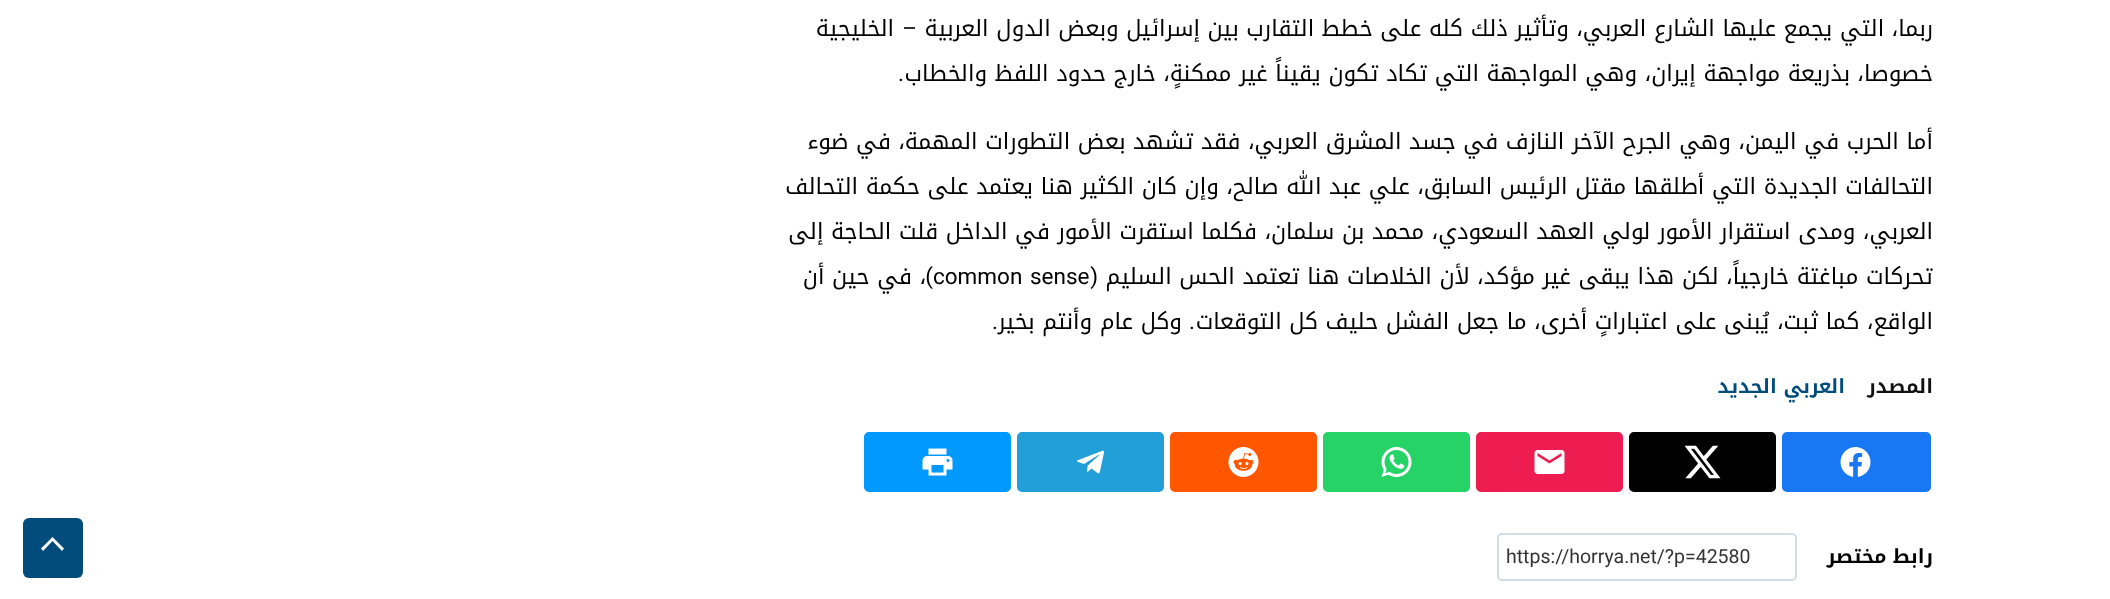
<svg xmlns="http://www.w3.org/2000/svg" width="2110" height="599">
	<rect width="100%" height="100%" fill="#FFFFFF" />
	<text x="1933" y="36" font-family="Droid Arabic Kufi" font-size="22.5" direction="rtl" fill="#000000">ربما، التي يجمع عليها الشارع العربي، وتأثير ذلك كله على خطط التقارب بين إسرائيل وبعض الدول العربية</text>
	<text x="917" y="36" font-family="Roboto" font-size="22.5" direction="rtl" fill="#000000">–</text>
	<g font-family="Droid Arabic Kufi" font-size="22.5" direction="rtl" fill="#000000">
		<text x="894" y="36">الخليجية</text>
		<text x="1933" y="81">خصوصا، بذريعة مواجهة إيران، وهي المواجهة التي تكاد تكون يقيناً غير ممكنةٍ، خارج حدود اللفظ والخطاب</text>
	</g>
	<text x="904" y="81" font-family="Roboto" font-size="22.5" direction="rtl" fill="#000000">.</text>
	<g font-family="Droid Arabic Kufi" font-size="22.5" direction="rtl" fill="#000000">
		<text x="1933" y="149">أما الحرب في اليمن، وهي الجرح الآخر النازف في جسد المشرق العربي، فقد تشهد بعض التطورات المهمة، في ضوء</text>
		<text x="1933" y="194">التحالفات الجديدة التي أطلقها مقتل الرئيس السابق، علي عبد الله صالح، وإن كان الكثير هنا يعتمد على حكمة التحالف</text>
		<text x="1933" y="239">العربي، ومدى استقرار الأمور لولي العهد السعودي، محمد بن سلمان، فكلما استقرت الأمور في الداخل قلت الحاجة إلى</text>
		<text x="1933" y="284">تحركات مباغتة خارجياً، لكن هذا يبقى غير مؤكد، لأن الخلاصات هنا تعتمد الحس السليم</text>
	</g>
	<text x="1098" y="284" font-family="Roboto" font-size="22.5" direction="rtl" fill="#000000">(</text>
	<text x="933" y="284" word-spacing="2" font-family="Roboto" font-size="22.5" fill="#000000">common sense</text>
	<text x="933" y="284" font-family="Roboto" font-size="22.5" direction="rtl" fill="#000000">)</text>
	<g font-family="Droid Arabic Kufi" font-size="22.5" direction="rtl" fill="#000000">
		<text x="926" y="284">، في حين أن</text>
		<text x="1933" y="329">الواقع، كما ثبت، يُبنى على اعتباراتٍ أخرى، ما جعل الفشل حليف كل التوقعات</text>
	</g>
	<text x="1195" y="329" font-family="Roboto" font-size="22.5" direction="rtl" fill="#000000">.</text>
	<text x="1182" y="329" font-family="Droid Arabic Kufi" font-size="22.5" direction="rtl" fill="#000000">وكل عام وأنتم بخير</text>
	<text x="998" y="329" font-family="Roboto" font-size="22.5" direction="rtl" fill="#000000">.</text>
	<text x="1933" y="393" font-family="Droid Arabic Kufi" font-size="19.5" font-weight="700" direction="rtl" fill="#111111">المصدر</text>
	<text x="1845" y="393" font-family="Droid Arabic Kufi" font-size="19.5" font-weight="700" direction="rtl" fill="#014C7A">العربي الجديد</text>
	<rect x="1780.5" y="430.5" width="152" height="63" rx="6.5" fill="#1877F2" stroke="#FFFFFF" stroke-width="3" />
	<image x="1840" y="447" width="31" height="30" href="assets/img1.png" />
	<rect x="1627.5" y="430.5" width="150" height="63" rx="6.5" fill="#000000" stroke="#FFFFFF" stroke-width="3" />
	<image x="1685" y="445" width="36" height="34" href="assets/img2.png" />
	<rect x="1474.5" y="430.5" width="150" height="63" rx="6.5" fill="#EE1D51" stroke="#FFFFFF" stroke-width="3" />
	<image x="1534" y="450" width="31" height="24" href="assets/img3.png" />
	<rect x="1321.5" y="430.5" width="150" height="63" rx="6.5" fill="#25D366" stroke="#FFFFFF" stroke-width="3" />
	<image x="1381" y="447" width="31" height="30" href="assets/img4.png" />
	<rect x="1168.5" y="430.5" width="150" height="63" rx="6.5" fill="#FF5700" stroke="#FFFFFF" stroke-width="3" />
	<image x="1228" y="447" width="31" height="30" href="assets/img5.png" />
	<rect x="1015.5" y="430.5" width="150" height="63" rx="6.5" fill="#229ED9" stroke="#FFFFFF" stroke-width="3" />
	<image x="1077" y="450" width="27" height="24" href="assets/img6.png" />
	<rect x="862.5" y="430.5" width="150" height="63" rx="6.5" fill="#0099FF" stroke="#FFFFFF" stroke-width="3" />
	<image x="922" y="448" width="31" height="28" href="assets/img7.png" />
	<text x="1933" y="563" font-family="Droid Arabic Kufi" font-size="19.5" font-weight="700" direction="rtl" fill="#000000">رابط مختصر</text>
	<rect x="1498" y="534" width="298" height="46" rx="4" fill="none" stroke="#D4DCE4" stroke-width="2" />
	<text x="1506" y="563" font-family="Roboto" font-size="19.5" fill="#333333">https://horrya.net/?p=42580</text>
	<rect x="23" y="518" width="60" height="60" rx="6" fill="#014C7A" />
	<path d="M64 548.5L62 551L52.5 541L43 551L41 548.5L52.5 537Z" fill="#FFFFFF" />
</svg>
